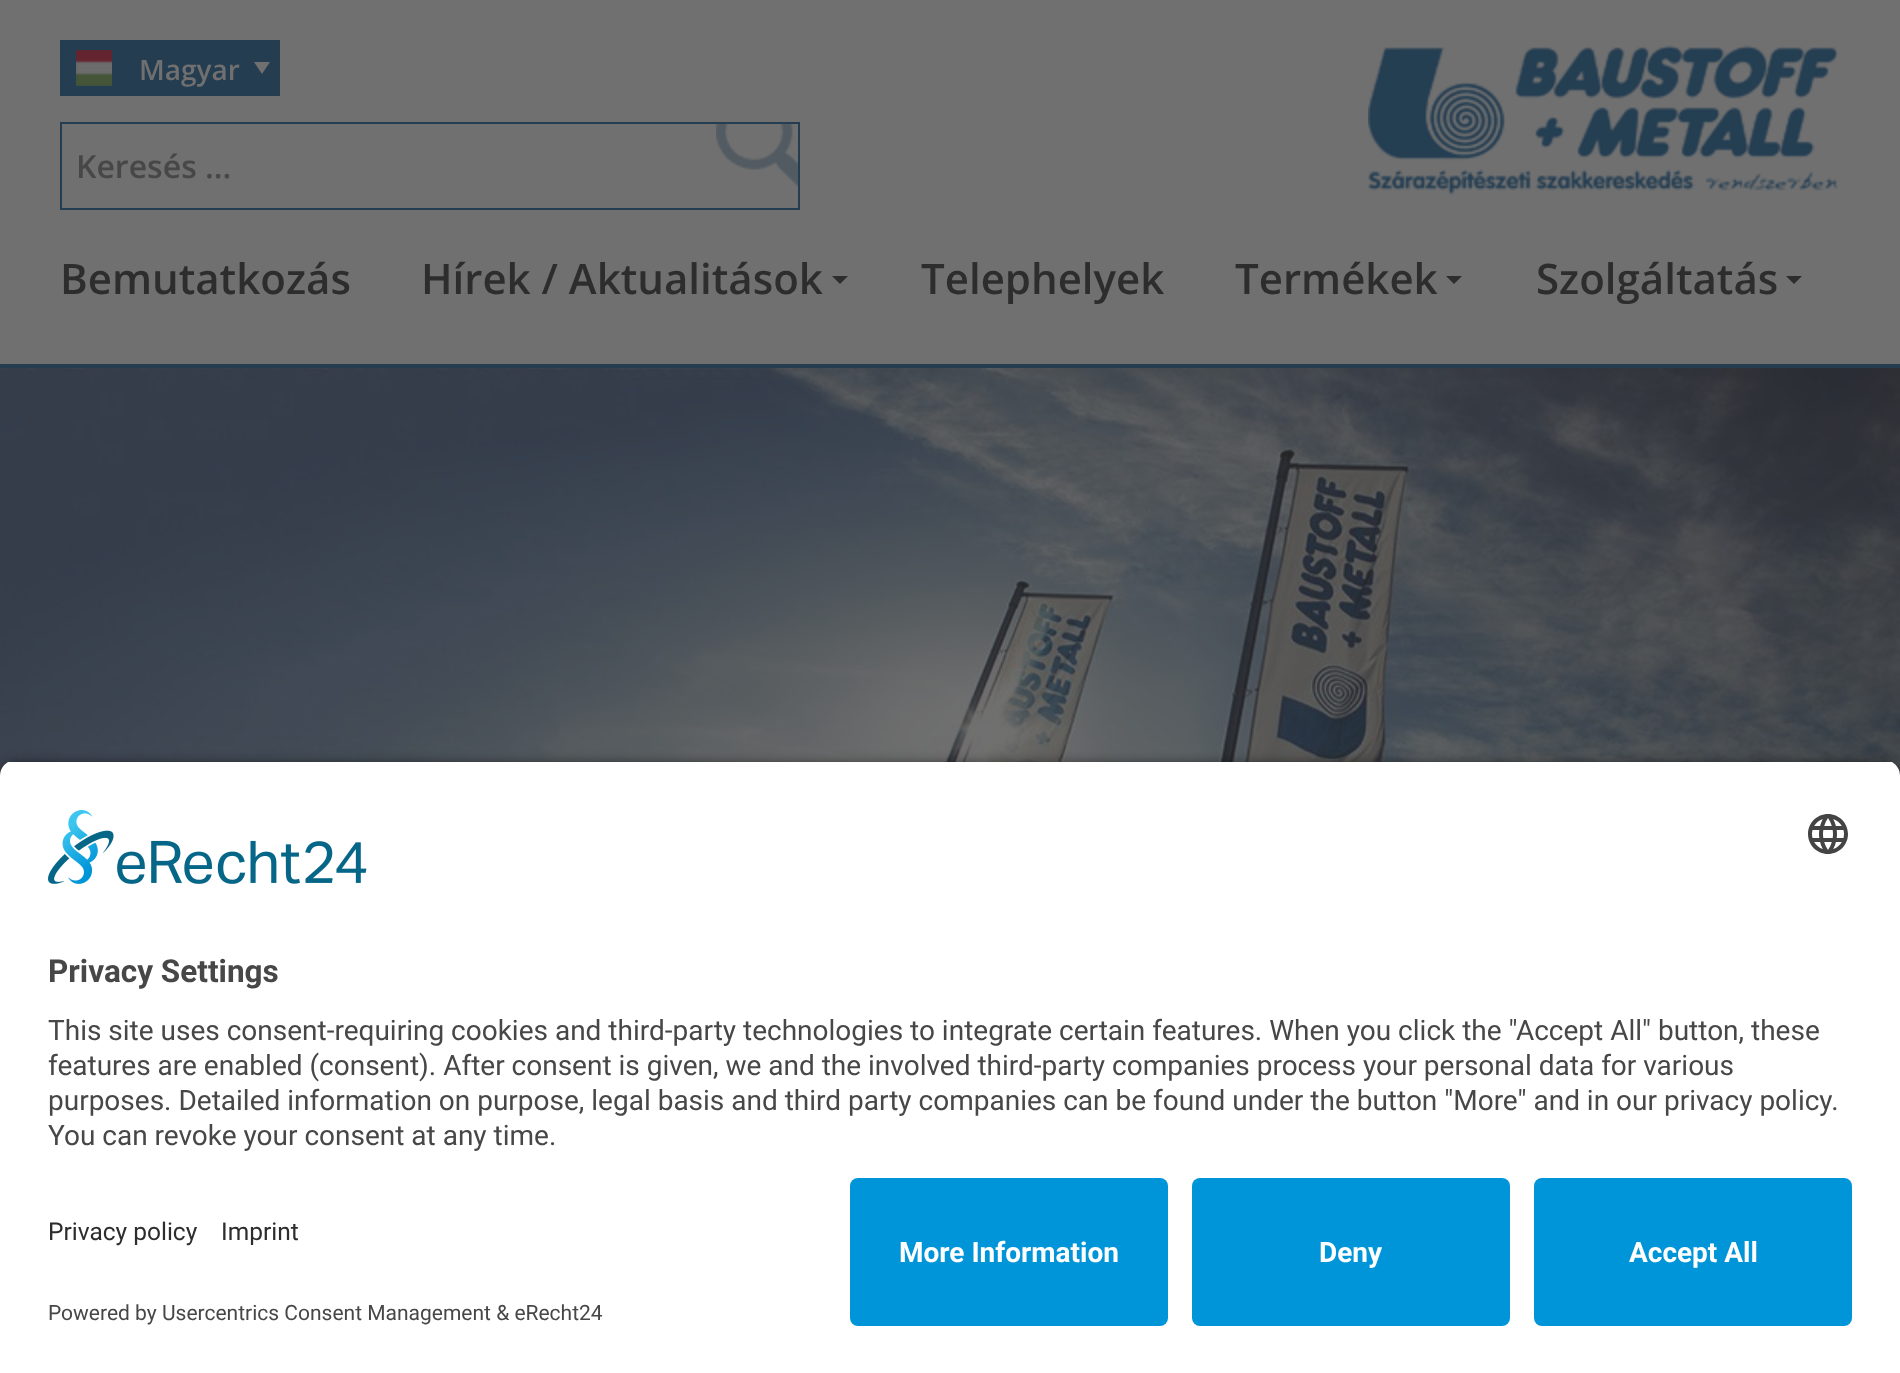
<svg xmlns="http://www.w3.org/2000/svg" width="1900" height="1373">
	<defs>
		<clipPath id="clip1"><path d="M16 760H1884C1893 760 1900 767 1900 776V1162H0V776C0 767 7 760 16 760Z" /></clipPath>
	</defs>
	<rect width="100%" height="100%" fill="#707070" />
	<rect x="60" y="40" width="220" height="56" fill="#243D51" />
	<image x="76" y="50" width="36" height="36" href="assets/img1.png" />
	<text x="139" y="80" font-family="Open Sans" font-size="28" font-weight="600" fill="#707070">Magyar</text>
	<path d="M254 62H270L262 74Z" fill="#707070" />
	<rect x="61" y="123" width="738" height="86" fill="none" stroke="#243D51" stroke-width="2" />
	<text x="76" y="178" font-family="Open Sans" font-size="32" font-weight="600" fill="#474747">Keresés ...</text>
	<image x="716" y="124" width="82" height="63" href="assets/img2.png" />
	<image x="1368" y="45" width="471" height="150" href="assets/img3.png" />
	<g font-family="Open Sans" font-size="42" font-weight="600" fill="#2D2D2D">
		<text x="60" y="294">Bemutatkozás</text>
		<text x="421" y="294">Hírek / Aktualitások</text>
	</g>
	<path d="M832 276H848L840 284Z" fill="#2D2D2D" />
	<g font-family="Open Sans" font-size="42" font-weight="600" fill="#2D2D2D">
		<text x="921" y="294">Telephelyek</text>
		<text x="1235" y="294">Termékek</text>
	</g>
	<path d="M1446 276H1462L1454 284Z" fill="#2D2D2D" />
	<text x="1536" y="294" font-family="Open Sans" font-size="42" font-weight="600" fill="#2D2D2D">Szolgáltatás</text>
	<path d="M1786 276H1802L1794 284Z" fill="#2D2D2D" />
	<rect x="0" y="364" width="1900" height="4" fill="#243D51" />
	<image x="0" y="368" width="1900" height="408" href="assets/img4.png" />
	<rect x="0" y="766" width="1900" height="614" rx="16" fill="#000000" fill-opacity="0.8" filter="blur(7px)" />
	<g clip-path="url(#clip1)">
		<rect x="0" y="762" width="1900" height="400" fill="#FFFFFF" />
	</g>
	<image x="48" y="810" width="319" height="74" href="assets/img5.png" />
	<image x="1808" y="814" width="40" height="40" href="assets/img6.png" />
	<text x="48" y="982" font-family="Roboto" font-size="31.5" font-weight="700" fill="#474747">Privacy Settings</text>
	<g font-family="Roboto" font-size="28" fill="#474747">
		<text x="48" y="1040">This site uses consent-requiring cookies and third-party technologies to integrate certain features. When you click the "Accept All" button, these</text>
		<text x="48" y="1075">features are enabled (consent). After consent is given, we and the involved third-party companies process your personal data for various</text>
		<text x="48" y="1110">purposes. Detailed information on purpose, legal basis and third party companies can be found under the button "More" and in our privacy policy.</text>
		<text x="48" y="1145">You can revoke your consent at any time.</text>
	</g>
	<rect x="0" y="1162" width="1900" height="211" fill="#FFFFFF" />
	<g font-family="Roboto" font-size="24.5" fill="#2D2D2D">
		<text x="48" y="1240">Privacy policy</text>
		<text x="221" y="1240">Imprint</text>
	</g>
	<text x="48" y="1320" font-family="Roboto" font-size="21" fill="#474747">Powered by Usercentrics Consent Management &amp; eRecht24</text>
	<rect x="850" y="1178" width="318" height="148" rx="8" fill="#0094D8" />
	<text x="899" y="1262" font-family="Roboto" font-size="28" font-weight="700" fill="#FFFFFF">More Information</text>
	<rect x="1192" y="1178" width="318" height="148" rx="8" fill="#0094D8" />
	<text x="1319" y="1262" font-family="Roboto" font-size="28" font-weight="700" fill="#FFFFFF">Deny</text>
	<rect x="1534" y="1178" width="318" height="148" rx="8" fill="#0094D8" />
	<text x="1629" y="1262" font-family="Roboto" font-size="28" font-weight="700" fill="#FFFFFF">Accept All</text>
</svg>
